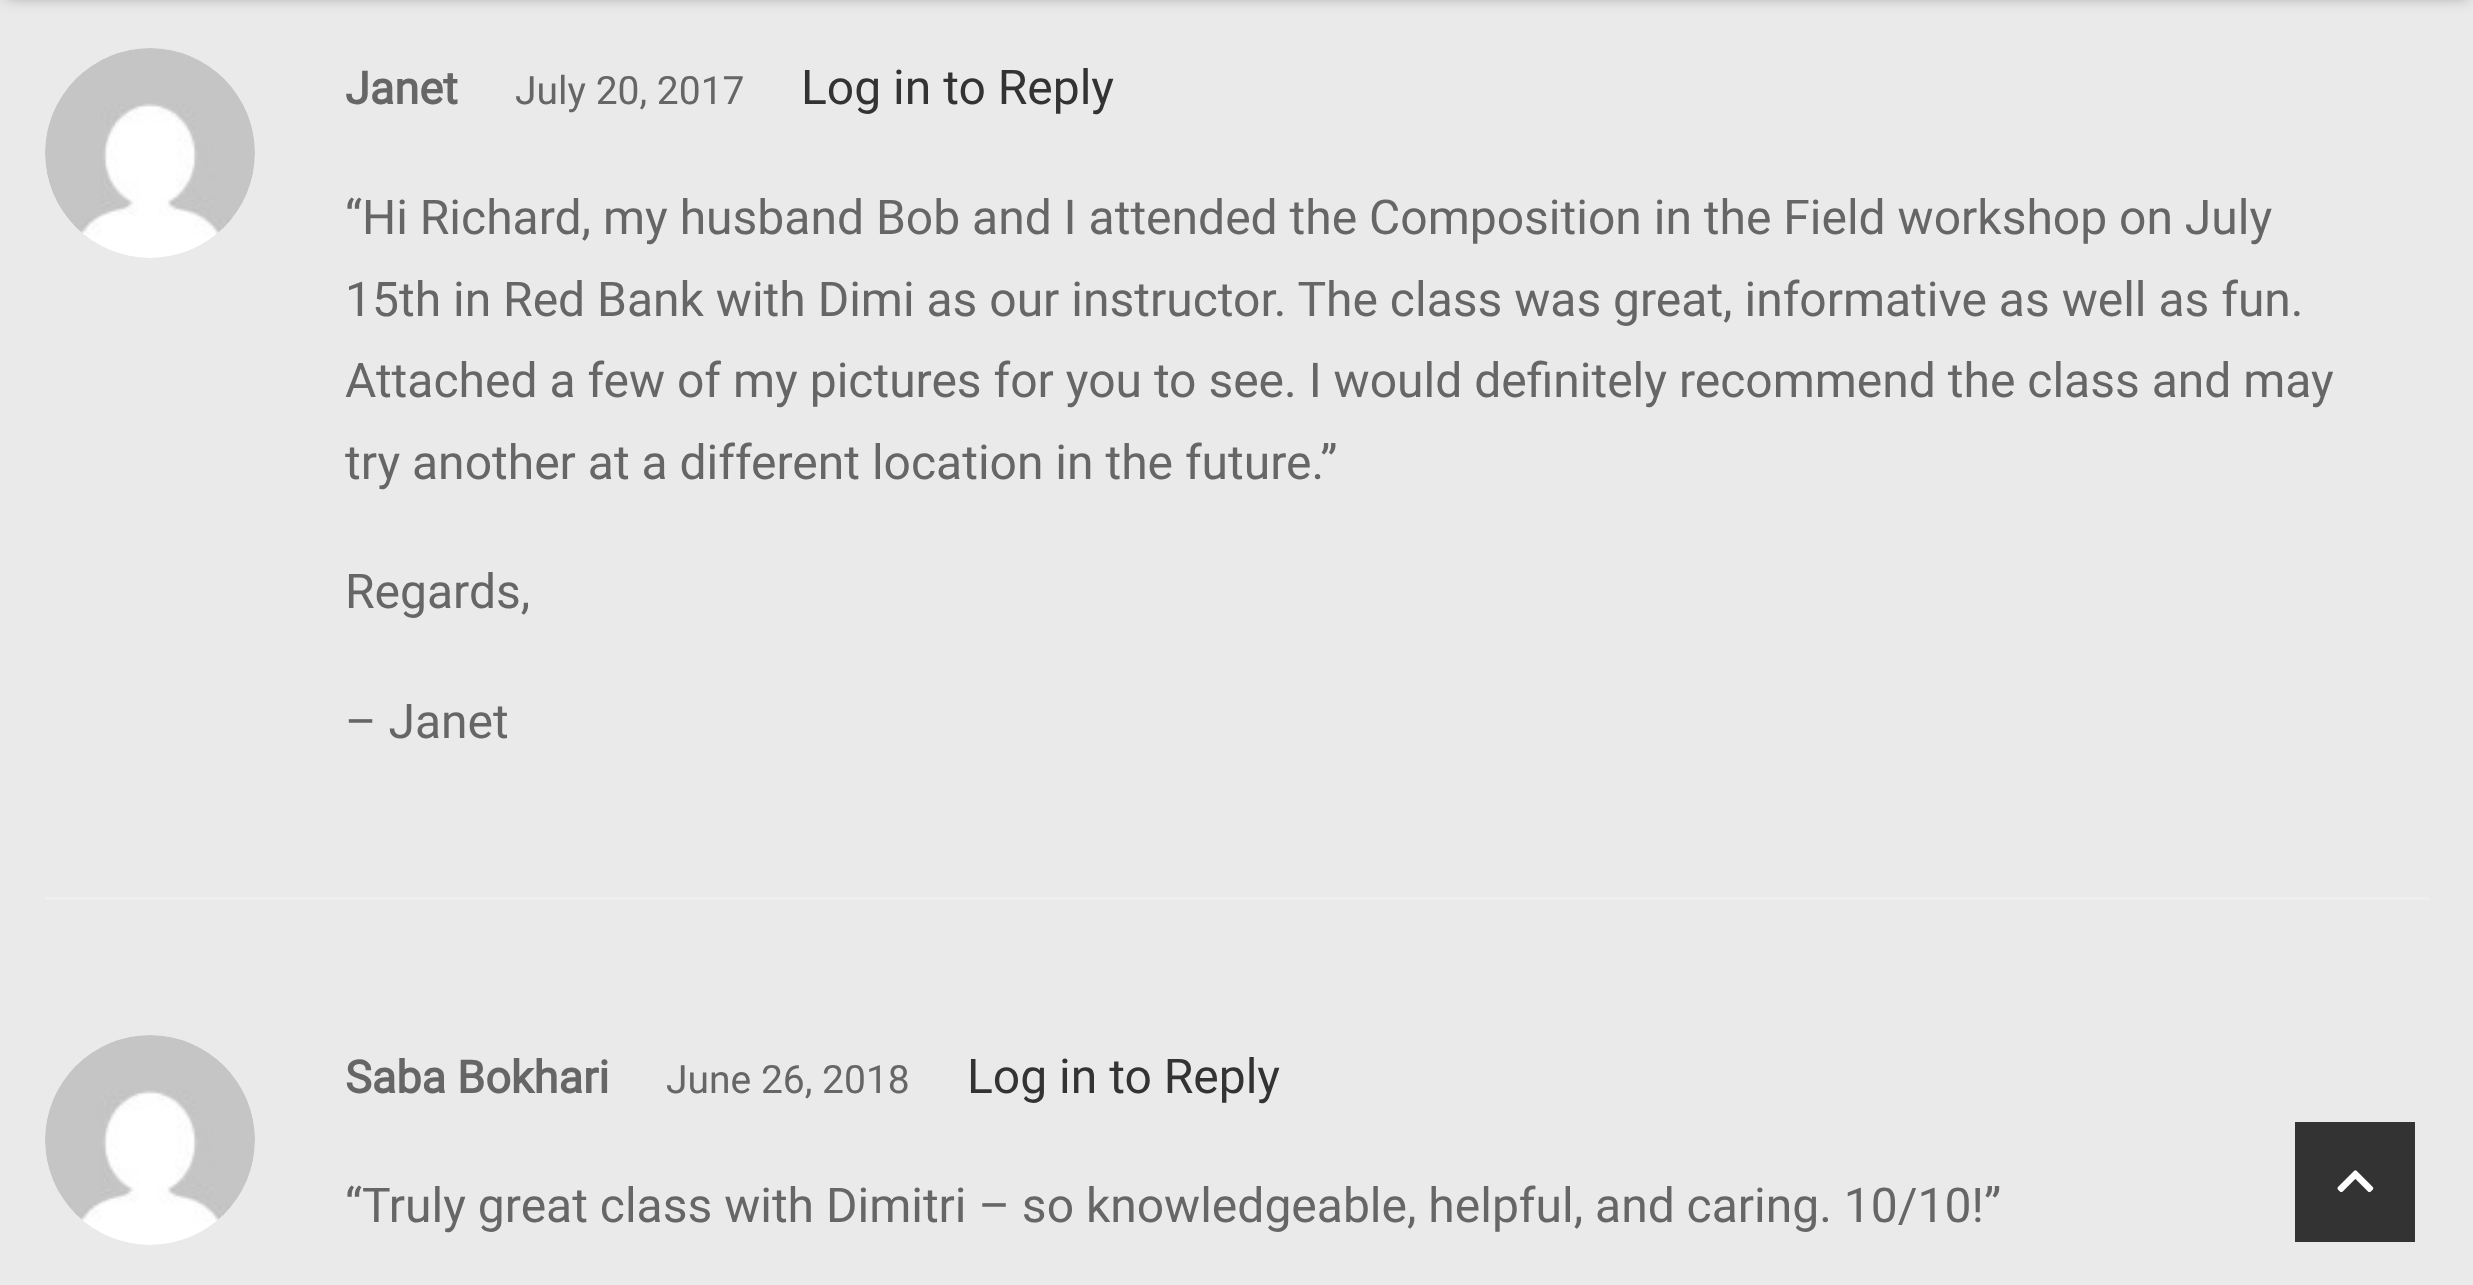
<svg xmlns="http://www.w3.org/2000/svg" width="2473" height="1285">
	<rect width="100%" height="100%" fill="#EAEAEA" />
	<rect x="6" y="-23" width="2463" height="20" fill="#2A2A2A" fill-opacity="0.4" filter="blur(7.5px)" />
	<image x="45" y="48" width="210" height="210" href="assets/img1.png" />
	<text x="345" y="104" font-family="Roboto" font-size="45" font-weight="700" fill="#666666">Janet</text>
	<text x="515" y="104" font-family="Roboto" font-size="39" fill="#666666">July 20, 2017</text>
	<text x="801" y="104" font-family="Roboto" font-size="48" fill="#333333">Log in to Reply</text>
	<g font-family="Roboto" font-size="48" fill="#666666">
		<text x="345" y="234">“Hi Richard, my husband Bob and I attended the Composition in the Field workshop on July</text>
		<text x="345" y="316">15th in Red Bank with Dimi as our instructor. The class was great, informative as well as fun.</text>
		<text x="345" y="397">Attached a few of my pictures for you to see. I would definitely recommend the class and may</text>
		<text x="345" y="479">try another at a different location in the future.”</text>
		<text x="345" y="608">Regards,</text>
		<text x="345" y="738">– Janet</text>
	</g>
	<rect x="45" y="897" width="2385" height="3" fill="#EEEEEE" />
	<image x="45" y="1035" width="210" height="210" href="assets/img2.png" />
	<text x="345" y="1093" font-family="Roboto" font-size="45" font-weight="700" fill="#666666">Saba Bokhari</text>
	<text x="666" y="1093" font-family="Roboto" font-size="39" fill="#666666">June 26, 2018</text>
	<text x="967" y="1093" font-family="Roboto" font-size="48" fill="#333333">Log in to Reply</text>
	<text x="345" y="1222" font-family="Roboto" font-size="48" fill="#666666">“Truly great class with Dimitri – so knowledgeable, helpful, and caring. 10/10!”</text>
	<rect x="2295" y="1122" width="120" height="120" fill="#333333" />
	<image x="2337" y="1170" width="37" height="23" href="assets/img3.png" />
</svg>
